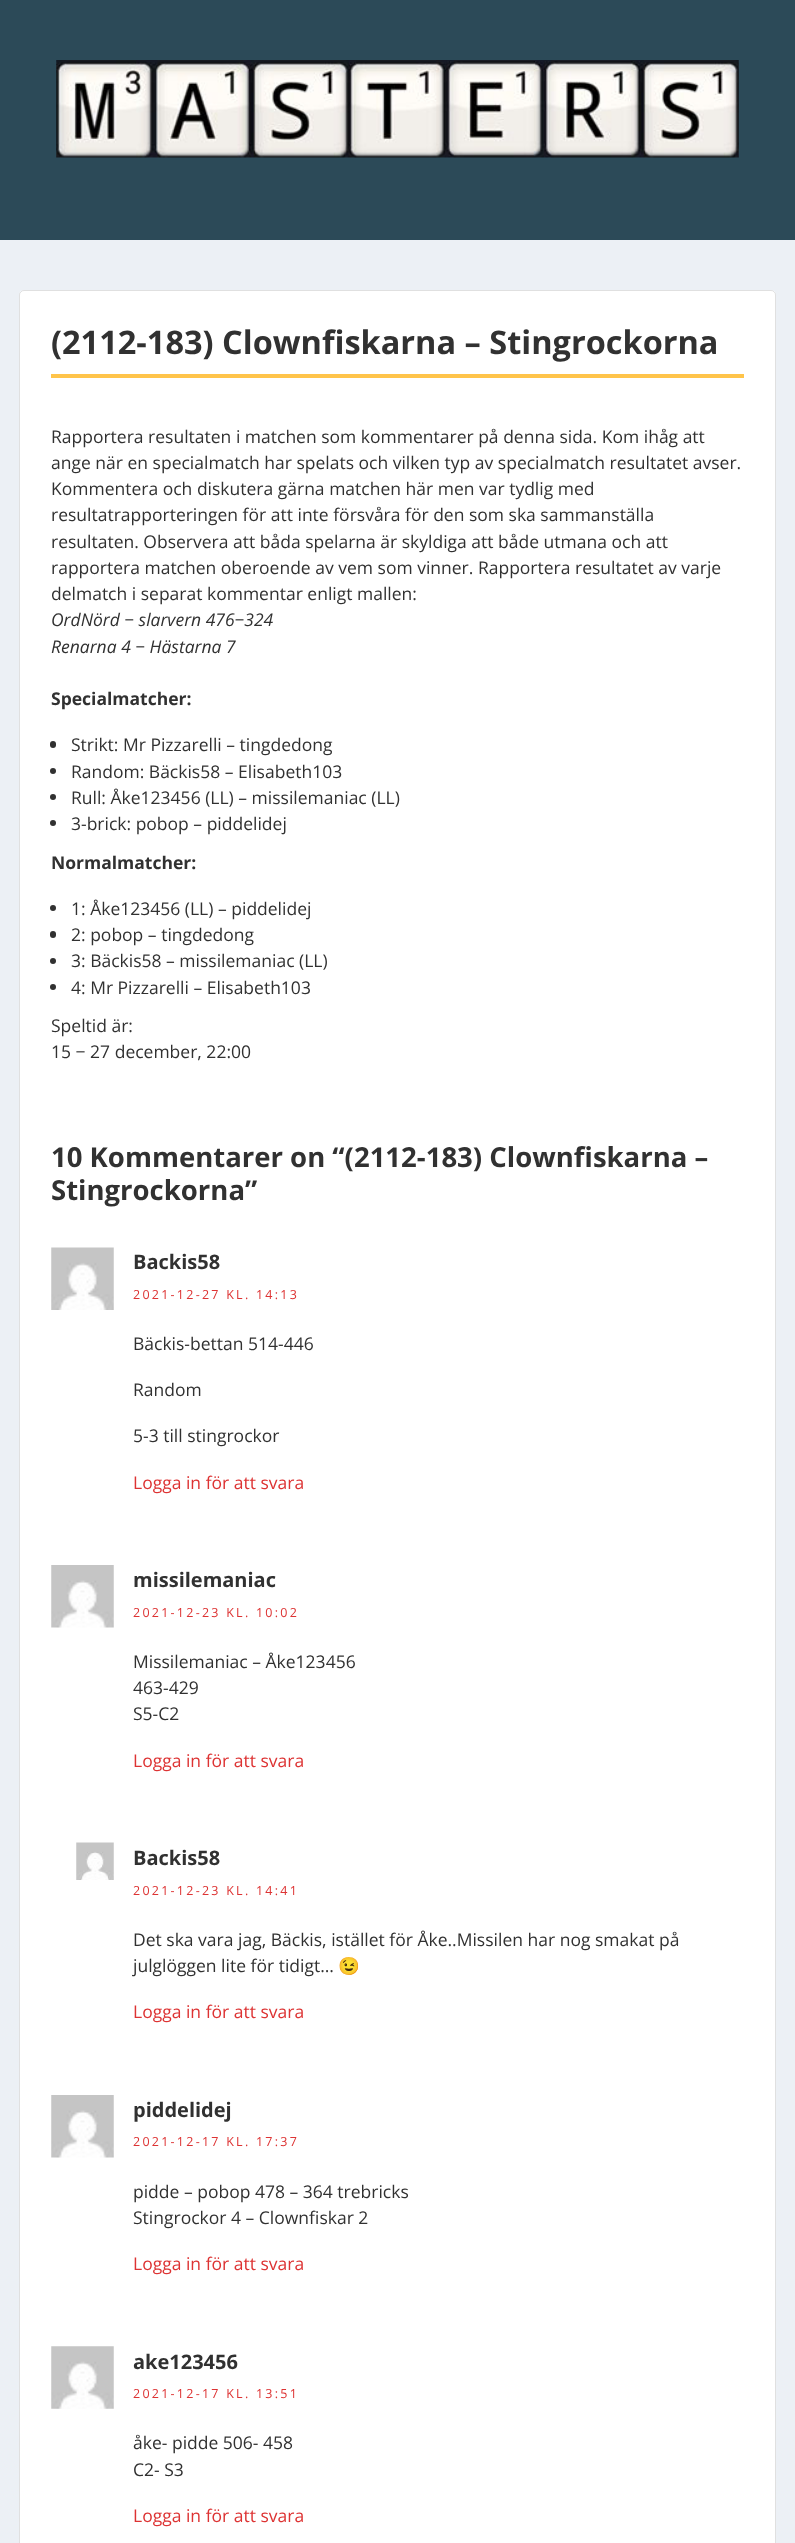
<svg xmlns="http://www.w3.org/2000/svg" width="795" height="2543">
	<rect width="100%" height="100%" fill="#ECF0F5" />
	<rect x="0" y="0" width="795" height="240" fill="#2C4A58" />
	<image x="56" y="60" width="683" height="98" href="assets/img1.png" />
	<rect x="19" y="290" width="757" height="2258" rx="5" fill="#FFFFFF" />
	<rect x="19.5" y="290.5" width="756" height="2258" rx="4.5" fill="none" stroke="#000000" stroke-opacity="0.12" />
	<rect x="51" y="374" width="693" height="4" fill="#FFC44A" />
	<text x="51" y="354" font-family="Open Sans" font-size="32.5" font-weight="700" fill="#313131">(2112-183) Clownfiskarna – Stingrockorna</text>
	<g font-family="Open Sans" font-size="17.5" fill="#313131">
		<text x="51" y="443">Rapportera resultaten i matchen som kommentarer på denna sida. Kom ihåg att</text>
		<text x="51" y="469">ange när en specialmatch har spelats och vilken typ av specialmatch resultatet avser.</text>
		<text x="51" y="495">Kommentera och diskutera gärna matchen här men var tydlig med</text>
		<text x="51" y="521">resultatrapporteringen för att inte försvåra för den som ska sammanställa</text>
		<text x="51" y="548">resultaten. Observera att båda spelarna är skyldiga att både utmana och att</text>
		<text x="51" y="574">rapportera matchen oberoende av vem som vinner. Rapportera resultatet av varje</text>
		<text x="51" y="600">delmatch i separat kommentar enligt mallen:</text>
	</g>
	<g font-family="Open Sans" font-size="17.5" font-style="italic" fill="#313131">
		<text x="51" y="626">OrdNörd − slarvern 476−324</text>
		<text x="51" y="653">Renarna 4 − Hästarna 7</text>
	</g>
	<text x="51" y="705" font-family="Open Sans" font-size="17.5" font-weight="700" fill="#313131">Specialmatcher:</text>
	<rect x="50" y="741" width="6" height="7" rx="3" fill="#313131" />
	<text x="71" y="751" font-family="Open Sans" font-size="17.5" fill="#313131">Strikt: Mr Pizzarelli – tingdedong</text>
	<circle cx="53" cy="771" r="3" fill="#313131" />
	<text x="71" y="778" font-family="Open Sans" font-size="17.5" fill="#313131">Random: Bäckis58 – Elisabeth103</text>
	<circle cx="53" cy="797" r="3" fill="#313131" />
	<text x="71" y="804" font-family="Open Sans" font-size="17.5" fill="#313131">Rull: Åke123456 (LL) – missilemaniac (LL)</text>
	<circle cx="53" cy="823" r="3" fill="#313131" />
	<text x="71" y="830" font-family="Open Sans" font-size="17.5" fill="#313131">3-brick: pobop – piddelidej</text>
	<text x="51" y="869" font-family="Open Sans" font-size="17.5" font-weight="700" fill="#313131">Normalmatcher:</text>
	<circle cx="53" cy="908" r="3" fill="#313131" />
	<text x="71" y="915" font-family="Open Sans" font-size="17.5" fill="#313131">1: Åke123456 (LL) – piddelidej</text>
	<rect x="50" y="931" width="6" height="7" rx="3" fill="#313131" />
	<text x="71" y="941" font-family="Open Sans" font-size="17.5" fill="#313131">2: pobop – tingdedong</text>
	<circle cx="53" cy="961" r="3" fill="#313131" />
	<text x="71" y="967" font-family="Open Sans" font-size="17.5" fill="#313131">3: Bäckis58 – missilemaniac (LL)</text>
	<circle cx="53" cy="987" r="3" fill="#313131" />
	<g font-family="Open Sans" font-size="17.5" fill="#313131">
		<text x="71" y="994">4: Mr Pizzarelli – Elisabeth103</text>
		<text x="51" y="1032">Speltid är:</text>
		<text x="51" y="1058">15 − 27 december, 22:00</text>
	</g>
	<g font-family="Open Sans" font-size="27.5" font-weight="700" fill="#313131">
		<text x="51" y="1167">10 Kommentarer on “(2112-183) Clownfiskarna –</text>
		<text x="51" y="1200">Stingrockorna”</text>
	</g>
	<image x="51" y="1247" width="63" height="63" href="assets/img2.png" />
	<text x="133" y="1269" font-family="Open Sans" font-size="20" font-weight="700" fill="#313131">Backis58</text>
	<text x="133" y="1299" font-family="Open Sans" font-size="12.5" letter-spacing="2.25" fill="#DD3333">2021-12-27 KL. 14:13</text>
	<g font-family="Open Sans" font-size="17.5" fill="#313131">
		<text x="133" y="1350">Bäckis-bettan 514-446</text>
		<text x="133" y="1396">Random</text>
		<text x="133" y="1442">5-3 till stingrockor</text>
	</g>
	<text x="133" y="1489" font-family="Open Sans" font-size="17.5" fill="#DD3333">Logga in för att svara</text>
	<image x="51" y="1565" width="63" height="63" href="assets/img3.png" />
	<text x="133" y="1587" font-family="Open Sans" font-size="20" font-weight="700" fill="#313131">missilemaniac</text>
	<text x="133" y="1617" font-family="Open Sans" font-size="12.5" letter-spacing="2.25" fill="#DD3333">2021-12-23 KL. 10:02</text>
	<g font-family="Open Sans" font-size="17.5" fill="#313131">
		<text x="133" y="1668">Missilemaniac – Åke123456</text>
		<text x="133" y="1694">463-429</text>
		<text x="133" y="1720">S5-C2</text>
	</g>
	<text x="133" y="1767" font-family="Open Sans" font-size="17.5" fill="#DD3333">Logga in för att svara</text>
	<image x="76" y="1842" width="38" height="38" href="assets/img4.png" />
	<text x="133" y="1865" font-family="Open Sans" font-size="20" font-weight="700" fill="#313131">Backis58</text>
	<text x="133" y="1895" font-family="Open Sans" font-size="12.5" letter-spacing="2.25" fill="#DD3333">2021-12-23 KL. 14:41</text>
	<g font-family="Open Sans" font-size="17.5" fill="#313131">
		<text x="133" y="1946">Det ska vara jag, Bäckis, istället för Åke..Missilen har nog smakat på</text>
		<text x="133" y="1972">julglöggen lite för tidigt…</text>
	</g>
	<text x="338" y="1972" font-family="Noto Color Emoji" font-size="17.5" fill="#313131">😉</text>
	<text x="133" y="2018" font-family="Open Sans" font-size="17.5" fill="#DD3333">Logga in för att svara</text>
	<image x="51" y="2095" width="63" height="63" href="assets/img3.png" />
	<text x="133" y="2117" font-family="Open Sans" font-size="20" font-weight="700" fill="#313131">piddelidej</text>
	<text x="133" y="2146" font-family="Open Sans" font-size="12.5" letter-spacing="2.25" fill="#DD3333">2021-12-17 KL. 17:37</text>
	<g font-family="Open Sans" font-size="17.5" fill="#313131">
		<text x="133" y="2198">pidde – pobop 478 – 364 trebricks</text>
		<text x="133" y="2224">Stingrockor 4 – Clownfiskar 2</text>
	</g>
	<text x="133" y="2270" font-family="Open Sans" font-size="17.5" fill="#DD3333">Logga in för att svara</text>
	<image x="51" y="2346" width="63" height="63" href="assets/img5.png" />
	<text x="133" y="2369" font-family="Open Sans" font-size="20" font-weight="700" fill="#313131">ake123456</text>
	<text x="133" y="2398" font-family="Open Sans" font-size="12.5" letter-spacing="2.25" fill="#DD3333">2021-12-17 KL. 13:51</text>
	<g font-family="Open Sans" font-size="17.5" fill="#313131">
		<text x="133" y="2449">åke- pidde 506- 458</text>
		<text x="133" y="2476">C2- S3</text>
	</g>
	<text x="133" y="2522" font-family="Open Sans" font-size="17.5" fill="#DD3333">Logga in för att svara</text>
</svg>
